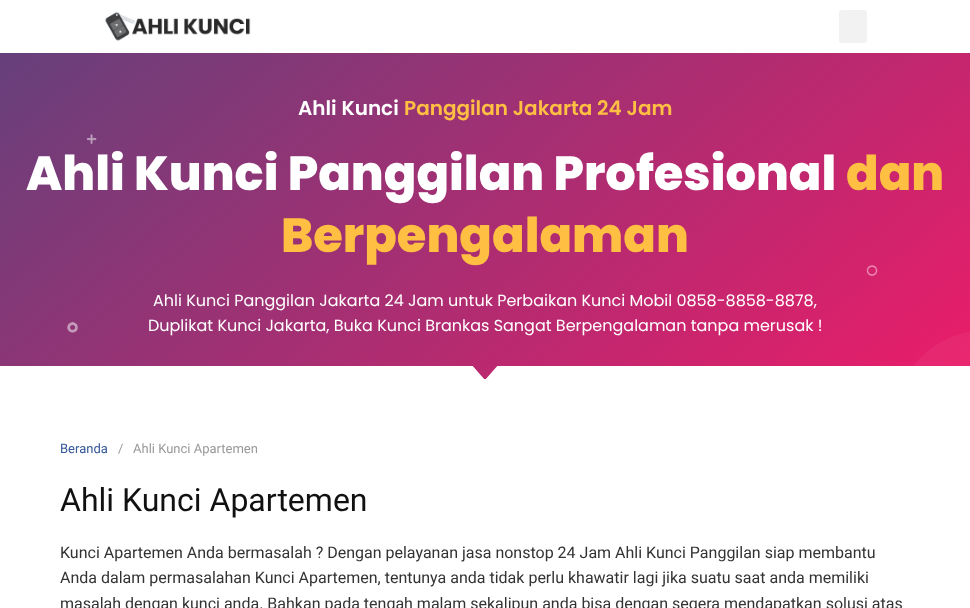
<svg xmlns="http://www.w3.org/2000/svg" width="970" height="608">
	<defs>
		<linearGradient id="g1" gradientUnits="userSpaceOnUse" x1="204" y1="-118" x2="766" y2="550"><stop offset="0" stop-color="#66407B" /><stop offset="1" stop-color="#EB1C69" /></linearGradient>
		<clipPath id="clip1"><rect x="0" y="366" width="970" height="14" /></clipPath>
	</defs>
	<rect width="100%" height="100%" fill="#FFFFFF" />
	<image x="105" y="12" width="146" height="29" href="assets/img1.png" />
	<rect x="839" y="10" width="28" height="33" rx="3" fill="#F2F2F2" />
	<rect x="0" y="53" width="970" height="326" fill="url(#g1)" />
	<text x="298" y="115" font-family="Poppins" font-size="20" font-weight="600" fill="#FFFFFF">Ahli Kunci</text>
	<text x="404" y="115" font-family="Poppins" font-size="20" font-weight="600" fill="#FFBF42">Panggilan Jakarta 24 Jam</text>
	<image x="67" y="134" width="903" height="232" href="assets/img2.png" />
	<text x="26" y="190" font-family="Poppins" font-size="48" font-weight="800" fill="#FFFFFF">Ahli Kunci Panggilan Profesional</text>
	<g font-family="Poppins" font-size="48" font-weight="800" fill="#FFBF42">
		<text x="846" y="190">dan</text>
		<text x="281" y="252">Berpengalaman</text>
	</g>
	<g font-family="Poppins" font-size="16" fill="#FFFFFF">
		<text x="153" y="306">Ahli Kunci Panggilan Jakarta 24 Jam untuk Perbaikan Kunci Mobil 0858-8858-8878,</text>
		<text x="148" y="331">Duplikat Kunci Jakarta, Buka Kunci Brankas Sangat Berpengalaman tanpa merusak !</text>
	</g>
	<g clip-path="url(#clip1)">
		<path d="M499 364L485 380L471 364H-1V380H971V364" fill="#FFFFFF" />
	</g>
	<text x="60" y="453" font-family="Roboto" font-size="13" fill="#365899">Beranda</text>
	<g font-family="Roboto" font-size="13" fill="#999999">
		<text x="118" y="453">/</text>
		<text x="133" y="453">Ahli Kunci Apartemen</text>
	</g>
	<text x="60" y="511" font-family="Roboto" font-size="32" fill="#111111">Ahli Kunci Apartemen</text>
	<g font-family="Roboto" font-size="16" fill="#333333">
		<text x="60" y="558">Kunci Apartemen Anda bermasalah ? Dengan pelayanan jasa nonstop 24 Jam Ahli Kunci Panggilan siap membantu</text>
		<text x="60" y="583">Anda dalam permasalahan Kunci Apartemen, tentunya anda tidak perlu khawatir lagi jika suatu saat anda memiliki</text>
		<text x="60" y="609">masalah dengan kunci anda. Bahkan pada tengah malam sekalipun anda bisa dengan segera mendapatkan solusi atas</text>
	</g>
</svg>
